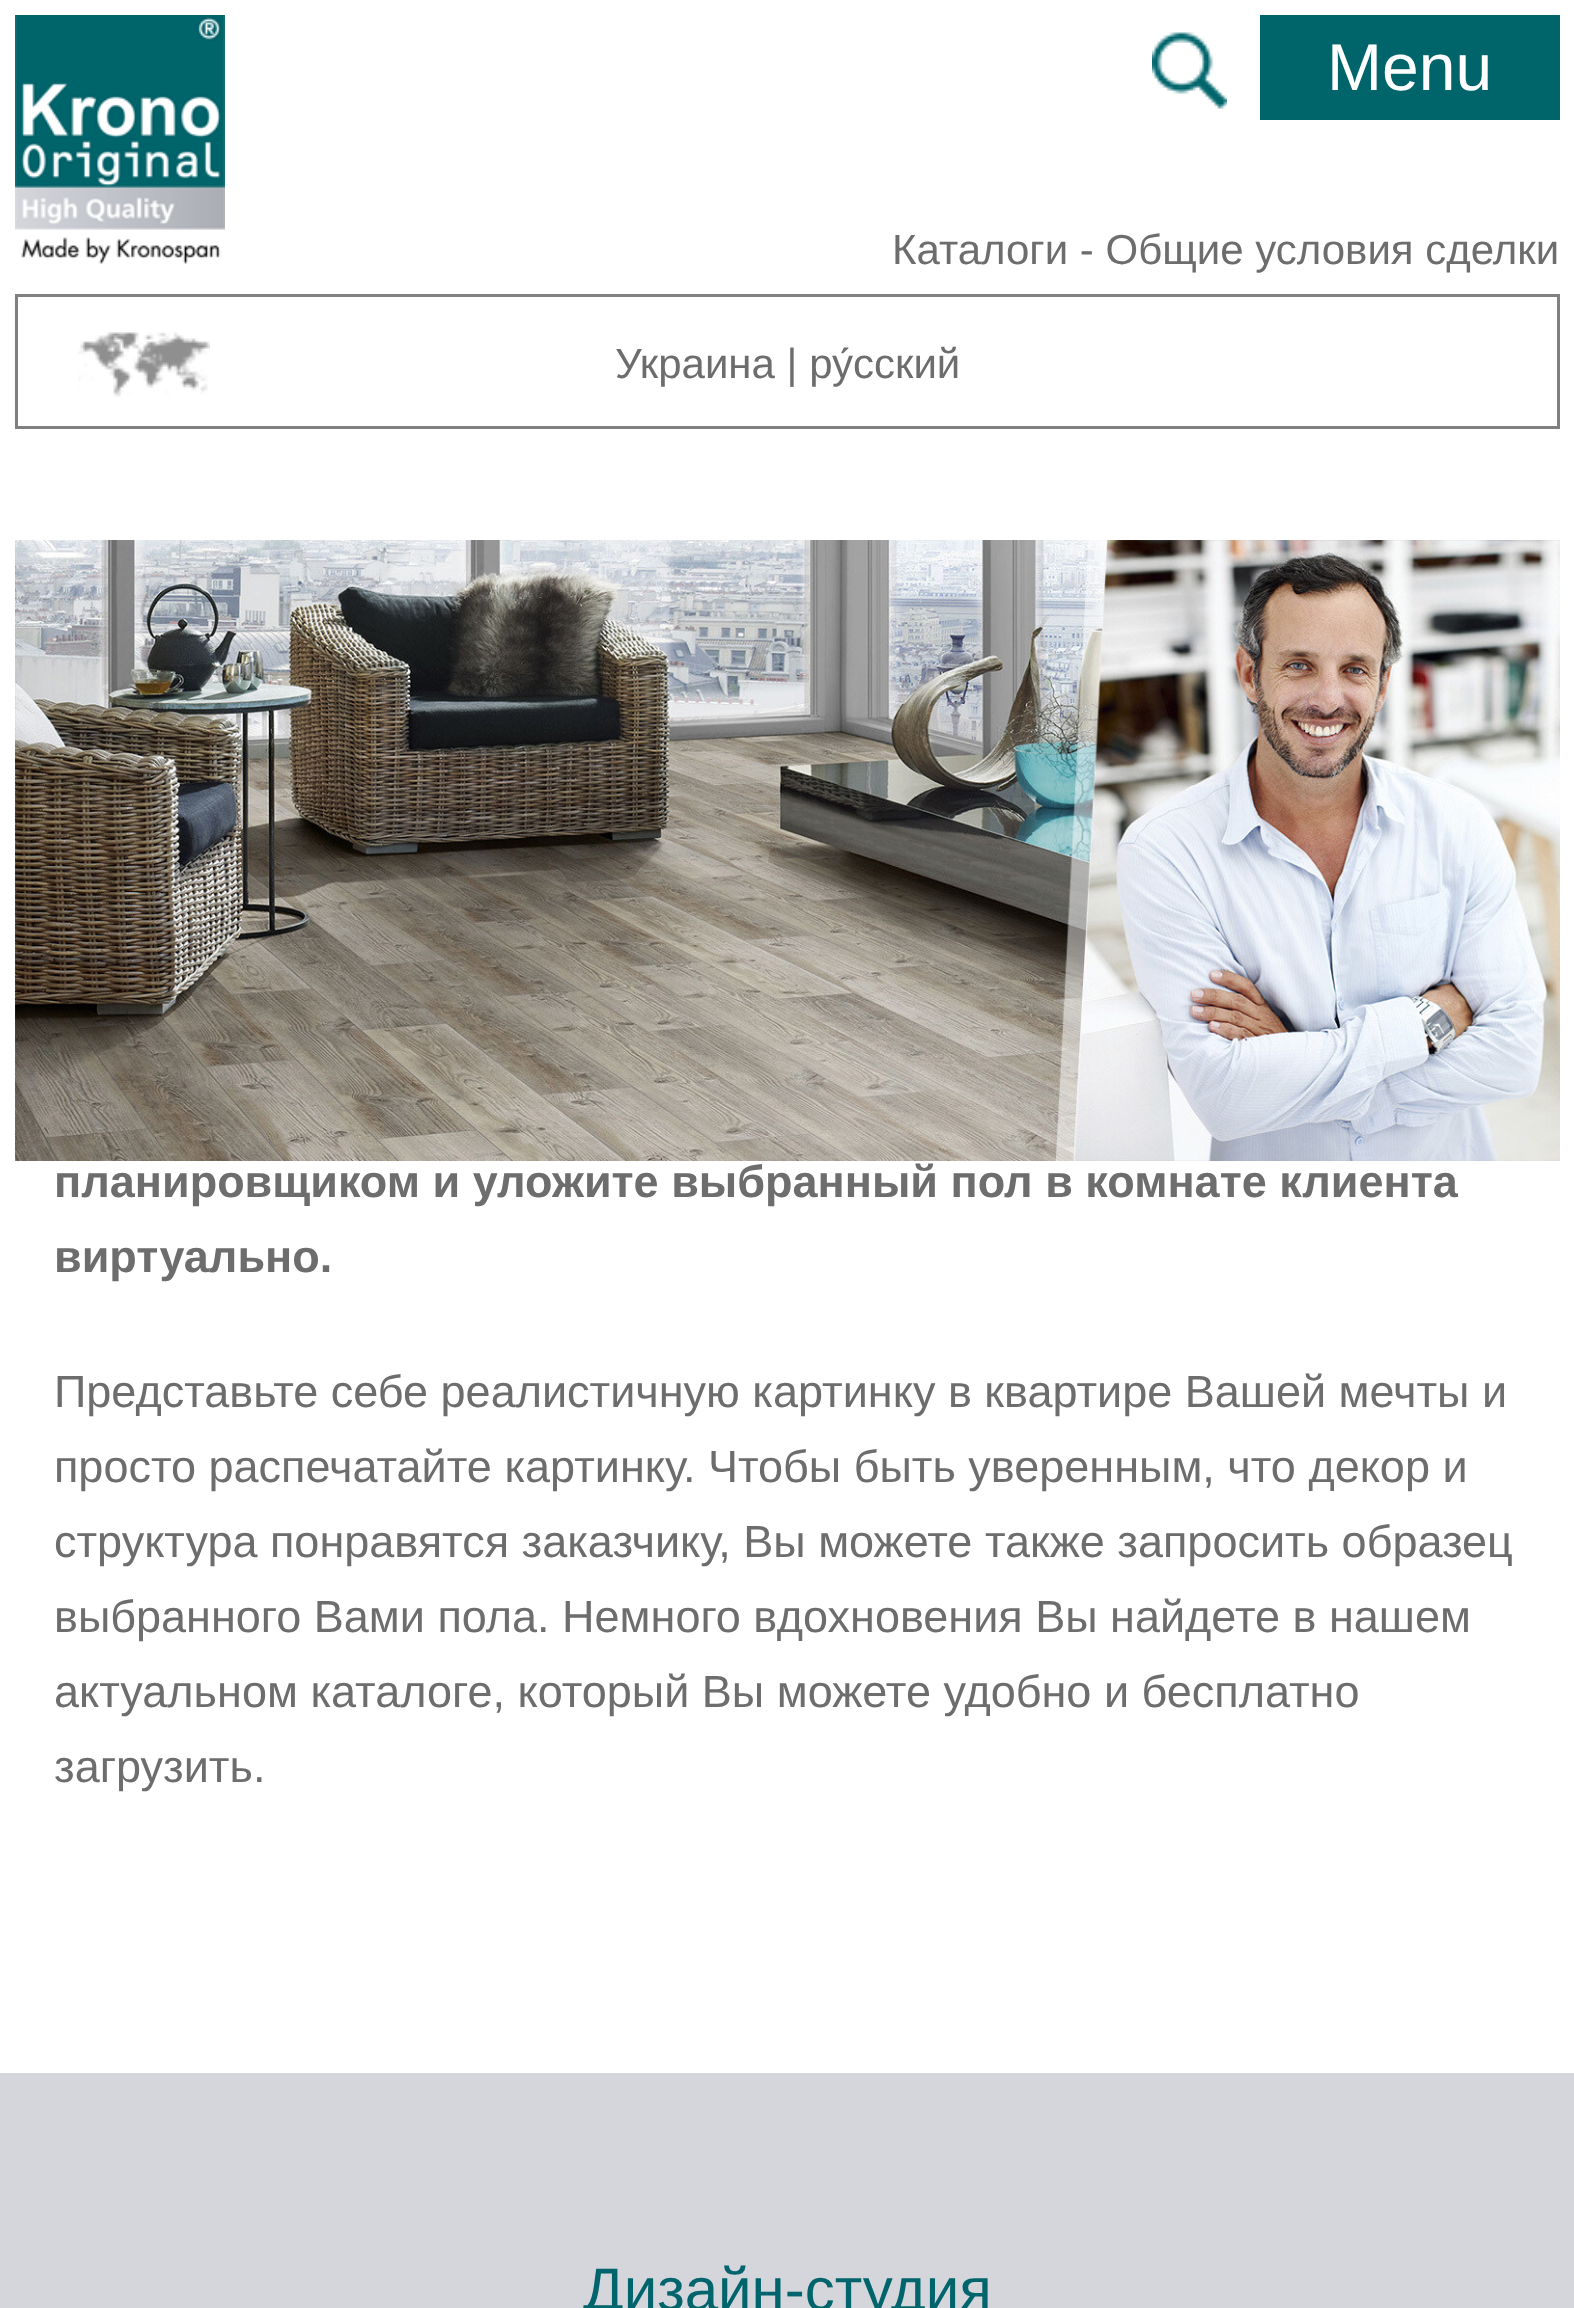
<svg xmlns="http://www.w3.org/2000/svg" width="1574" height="2308">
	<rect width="100%" height="100%" fill="#FFFFFF" />
	<image x="15" y="15" width="210" height="249" href="assets/img1.png" />
	<image x="1152" y="32" width="75" height="77" href="assets/img2.png" />
	<rect x="1260" y="15" width="300" height="105" fill="#00656B" />
	<text x="1327" y="90" font-family="Liberation Sans" font-size="66" fill="#FFFFFF">Menu</text>
	<text x="892" y="264" font-family="Liberation Sans" font-size="42" fill="#6D6D6D">Каталоги - Общие условия сделки</text>
	<image x="78" y="332" width="132" height="65" href="assets/img3.png" />
	<rect x="16.5" y="295.5" width="1542" height="132" fill="none" stroke="#808080" stroke-width="3" />
	<text x="615" y="378" font-family="Liberation Sans" font-size="42" fill="#6D6D6D">Украина | ру́сский</text>
	<image x="15" y="540" width="1545" height="621" href="assets/img4.png" />
	<g font-family="Liberation Sans" font-size="45" font-weight="700" fill="#6D6D6D">
		<text x="54" y="1197">планировщиком и уложите выбранный пол в комнате клиента</text>
		<text x="54" y="1272">виртуально.</text>
	</g>
	<g font-family="Liberation Sans" font-size="45" fill="#6D6D6D">
		<text x="54" y="1407">Представьте себе реалистичную картинку в квартире Вашей мечты и</text>
		<text x="54" y="1482">просто распечатайте картинку. Чтобы быть уверенным, что декор и</text>
		<text x="54" y="1557">структура понравятся заказчику, Вы можете также запросить образец</text>
		<text x="54" y="1632">выбранного Вами пола. Немного вдохновения Вы найдете в нашем</text>
		<text x="54" y="1707">актуальном каталоге, который Вы можете удобно и бесплатно</text>
		<text x="54" y="1782">загрузить.</text>
	</g>
	<rect x="0" y="2073" width="1574" height="235" fill="#D5D6DC" />
	<text x="583" y="2310" font-family="Liberation Sans" font-size="60" fill="#00646C">Дизайн-студия</text>
</svg>
